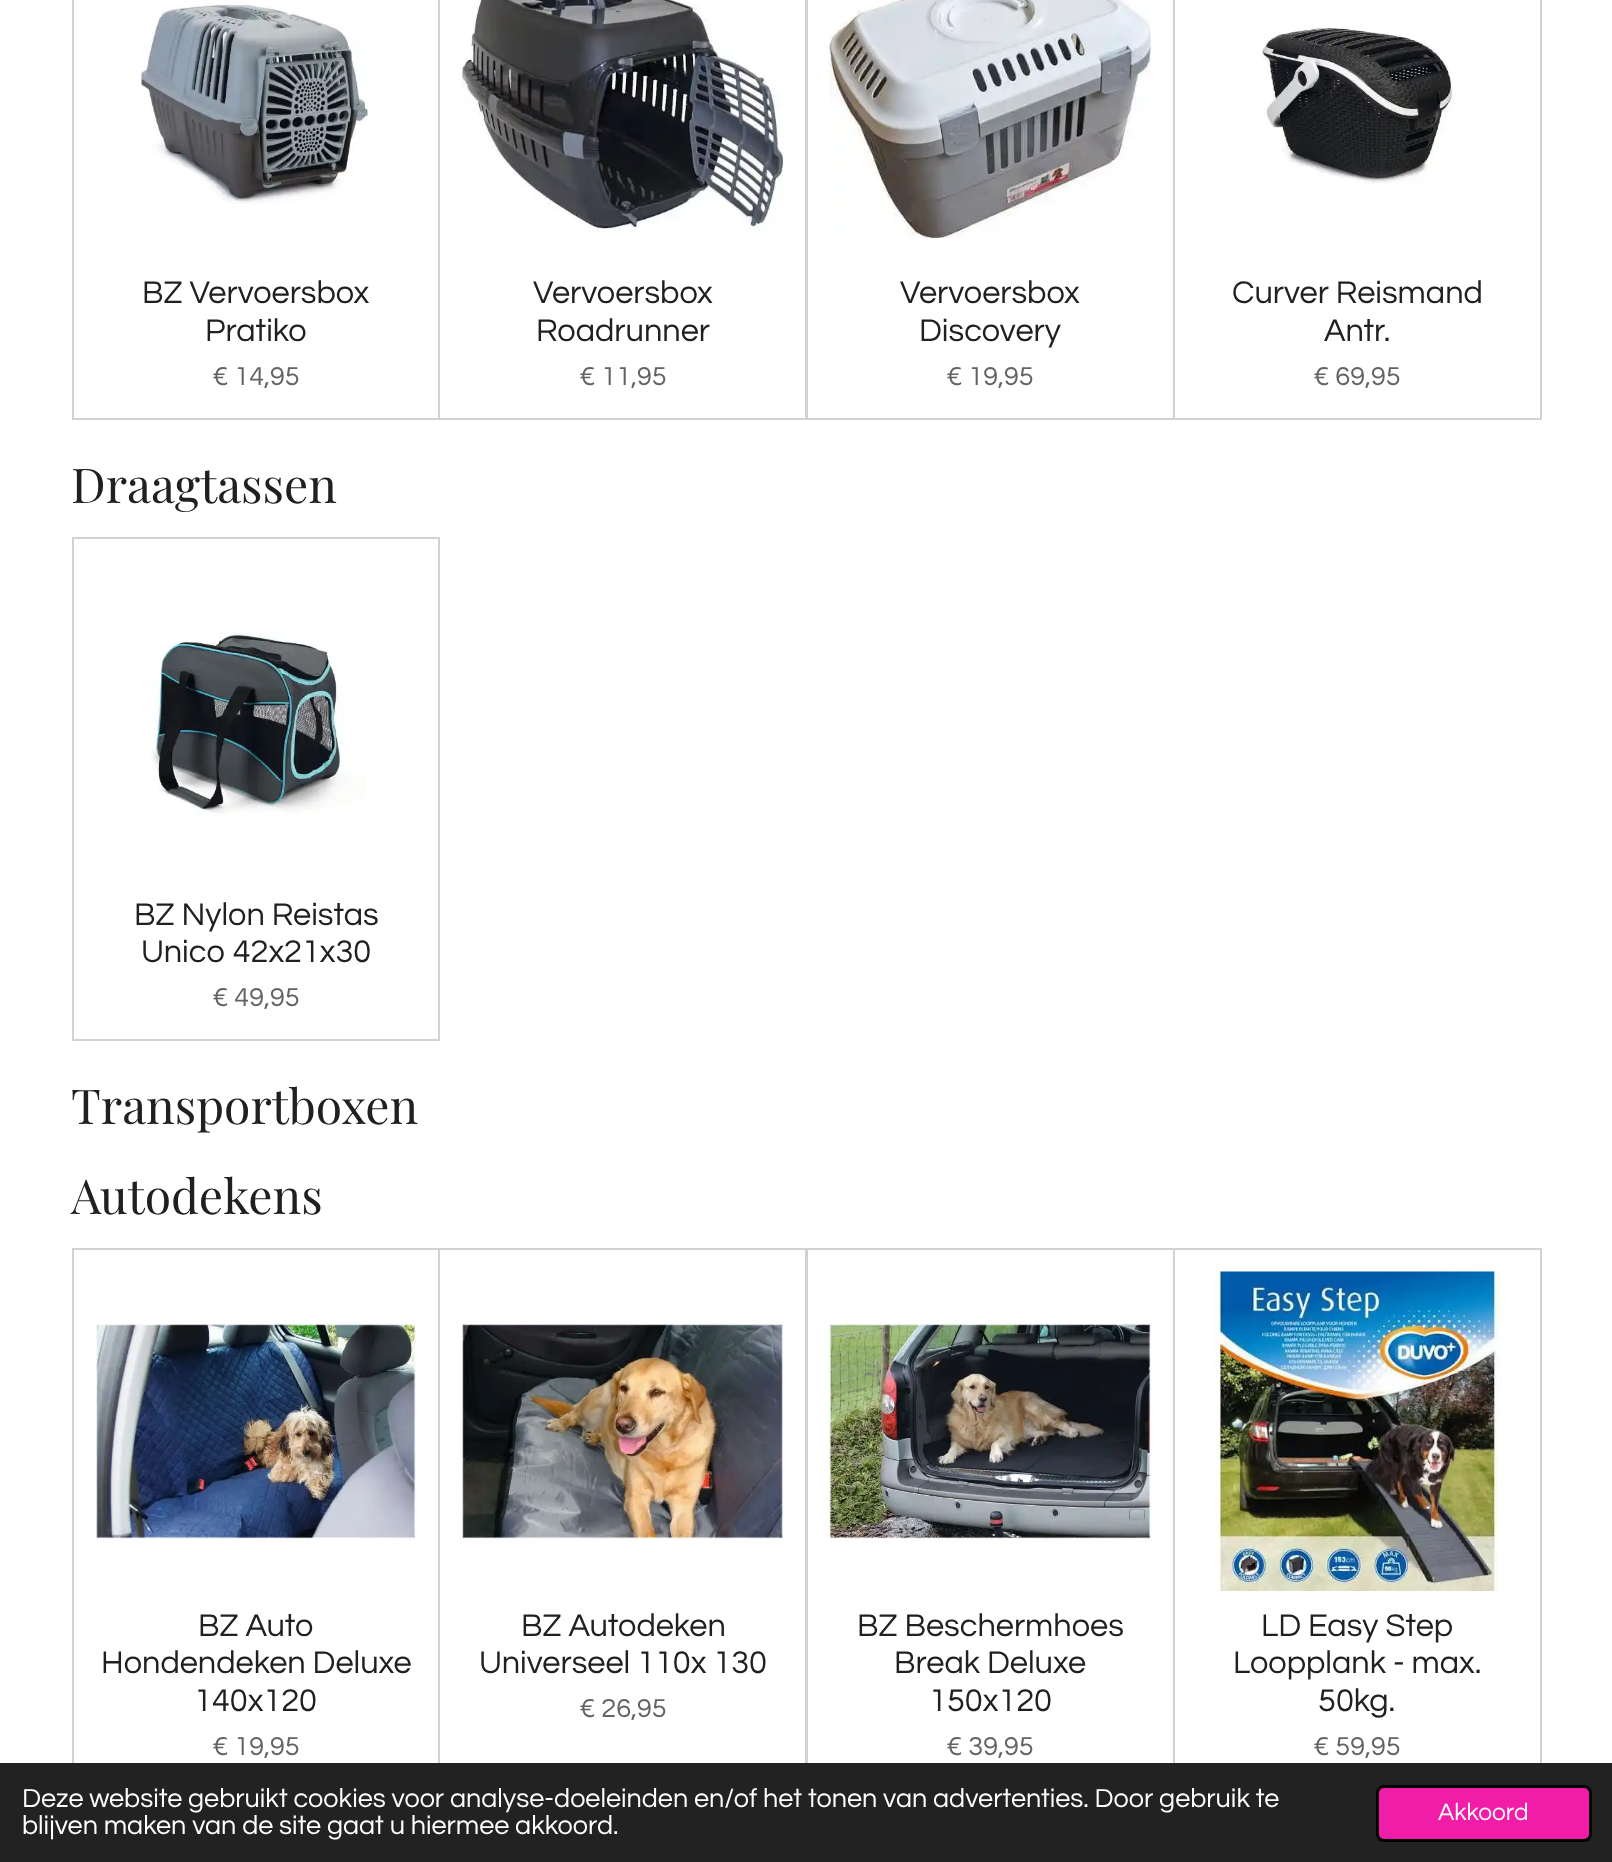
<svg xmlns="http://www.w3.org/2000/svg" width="1612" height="1862">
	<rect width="100%" height="100%" fill="#FFFFFF" />
	<rect x="73" y="-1" width="366" height="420" fill="none" stroke="#D2D2D2" stroke-width="2" />
	<image x="141" y="4" width="229" height="200" href="assets/img1.png" />
	<g font-family="Questrial" font-size="32.5" fill="#202020">
		<text x="142" y="303">BZ Vervoersbox</text>
		<text x="205" y="341">Pratiko</text>
	</g>
	<text x="212" y="385" font-family="Questrial" font-size="27" fill="#636363">€ 14,95</text>
	<rect x="439" y="-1" width="367" height="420" fill="none" stroke="#D2D2D2" stroke-width="2" />
	<image x="462" y="0" width="321" height="232" href="assets/img2.png" />
	<g font-family="Questrial" font-size="32.5" fill="#202020">
		<text x="533" y="303">Vervoersbox</text>
		<text x="536" y="341">Roadrunner</text>
	</g>
	<text x="579" y="385" font-family="Questrial" font-size="27" fill="#636363">€ 11,95</text>
	<rect x="807" y="-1" width="367" height="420" fill="none" stroke="#D2D2D2" stroke-width="2" />
	<image x="829" y="0" width="322" height="238" href="assets/img3.png" />
	<g font-family="Questrial" font-size="32.5" fill="#202020">
		<text x="900" y="303">Vervoersbox</text>
		<text x="919" y="341">Discovery</text>
	</g>
	<text x="946" y="385" font-family="Questrial" font-size="27" fill="#636363">€ 19,95</text>
	<rect x="1174" y="-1" width="367" height="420" fill="none" stroke="#D2D2D2" stroke-width="2" />
	<image x="1262" y="27" width="191" height="157" href="assets/img4.png" />
	<g font-family="Questrial" font-size="32.5" fill="#202020">
		<text x="1232" y="303">Curver Reismand</text>
		<text x="1324" y="341">Antr.</text>
	</g>
	<text x="1313" y="385" font-family="Questrial" font-size="27" fill="#636363">€ 69,95</text>
	<text x="71" y="503" font-family="Playfair Display" font-size="48" fill="#202020">Draagtassen</text>
	<rect x="73" y="538" width="366" height="502" fill="none" stroke="#D2D2D2" stroke-width="2" />
	<image x="151" y="632" width="215" height="184" href="assets/img5.png" />
	<g font-family="Questrial" font-size="32.5" fill="#202020">
		<text x="134" y="925">BZ Nylon Reistas</text>
		<text x="141" y="962">Unico 42x21x30</text>
	</g>
	<text x="212" y="1006" font-family="Questrial" font-size="27" fill="#636363">€ 49,95</text>
	<g font-family="Playfair Display" font-size="48" fill="#202020">
		<text x="71" y="1124">Transportboxen</text>
		<text x="71" y="1214">Autodekens</text>
	</g>
	<rect x="73" y="1249" width="366" height="540" fill="none" stroke="#D2D2D2" stroke-width="2" />
	<image x="96" y="1324" width="320" height="215" href="assets/img6.png" />
	<g font-family="Questrial" font-size="32.5" fill="#202020">
		<text x="198" y="1636">BZ Auto</text>
		<text x="101" y="1673">Hondendeken Deluxe</text>
		<text x="194" y="1711">140x120</text>
	</g>
	<text x="212" y="1755" font-family="Questrial" font-size="27" fill="#636363">€ 19,95</text>
	<rect x="439" y="1249" width="367" height="540" fill="none" stroke="#D2D2D2" stroke-width="2" />
	<image x="462" y="1324" width="321" height="215" href="assets/img7.png" />
	<g font-family="Questrial" font-size="32.5" fill="#202020">
		<text x="521" y="1636">BZ Autodeken</text>
		<text x="479" y="1673">Universeel 110x 130</text>
	</g>
	<text x="579" y="1717" font-family="Questrial" font-size="27" fill="#636363">€ 26,95</text>
	<rect x="807" y="1249" width="367" height="540" fill="none" stroke="#D2D2D2" stroke-width="2" />
	<image x="829" y="1324" width="322" height="215" href="assets/img8.png" />
	<g font-family="Questrial" font-size="32.5" fill="#202020">
		<text x="857" y="1636">BZ Beschermhoes</text>
		<text x="894" y="1673">Break Deluxe</text>
		<text x="929" y="1711">150x120</text>
	</g>
	<text x="946" y="1755" font-family="Questrial" font-size="27" fill="#636363">€ 39,95</text>
	<rect x="1174" y="1249" width="367" height="540" fill="none" stroke="#D2D2D2" stroke-width="2" />
	<image x="1214" y="1271" width="288" height="320" href="assets/img9.png" />
	<g font-family="Questrial" font-size="32.5" fill="#202020">
		<text x="1261" y="1636">LD Easy Step</text>
		<text x="1233" y="1673">Loopplank - max.</text>
		<text x="1318" y="1711">50kg.</text>
	</g>
	<text x="1313" y="1755" font-family="Questrial" font-size="27" fill="#636363">€ 59,95</text>
	<rect x="0" y="1763" width="1612" height="99" fill="#222222" />
	<g font-family="Questrial" font-size="27" fill="#FFFFFF">
		<text x="22" y="1807">Deze website gebruikt cookies voor analyse-doeleinden en/of het tonen van advertenties. Door gebruik te</text>
		<text x="22" y="1834">blijven maken van de site gaat u hiermee akkoord.</text>
	</g>
	<rect x="1377.5" y="1786.5" width="213" height="54" rx="6.5" fill="#F11CA7" stroke="#000000" stroke-width="3" />
	<text x="1438" y="1820" font-family="Questrial" font-size="24.5" fill="#FFFFFF">Akkoord</text>
</svg>
